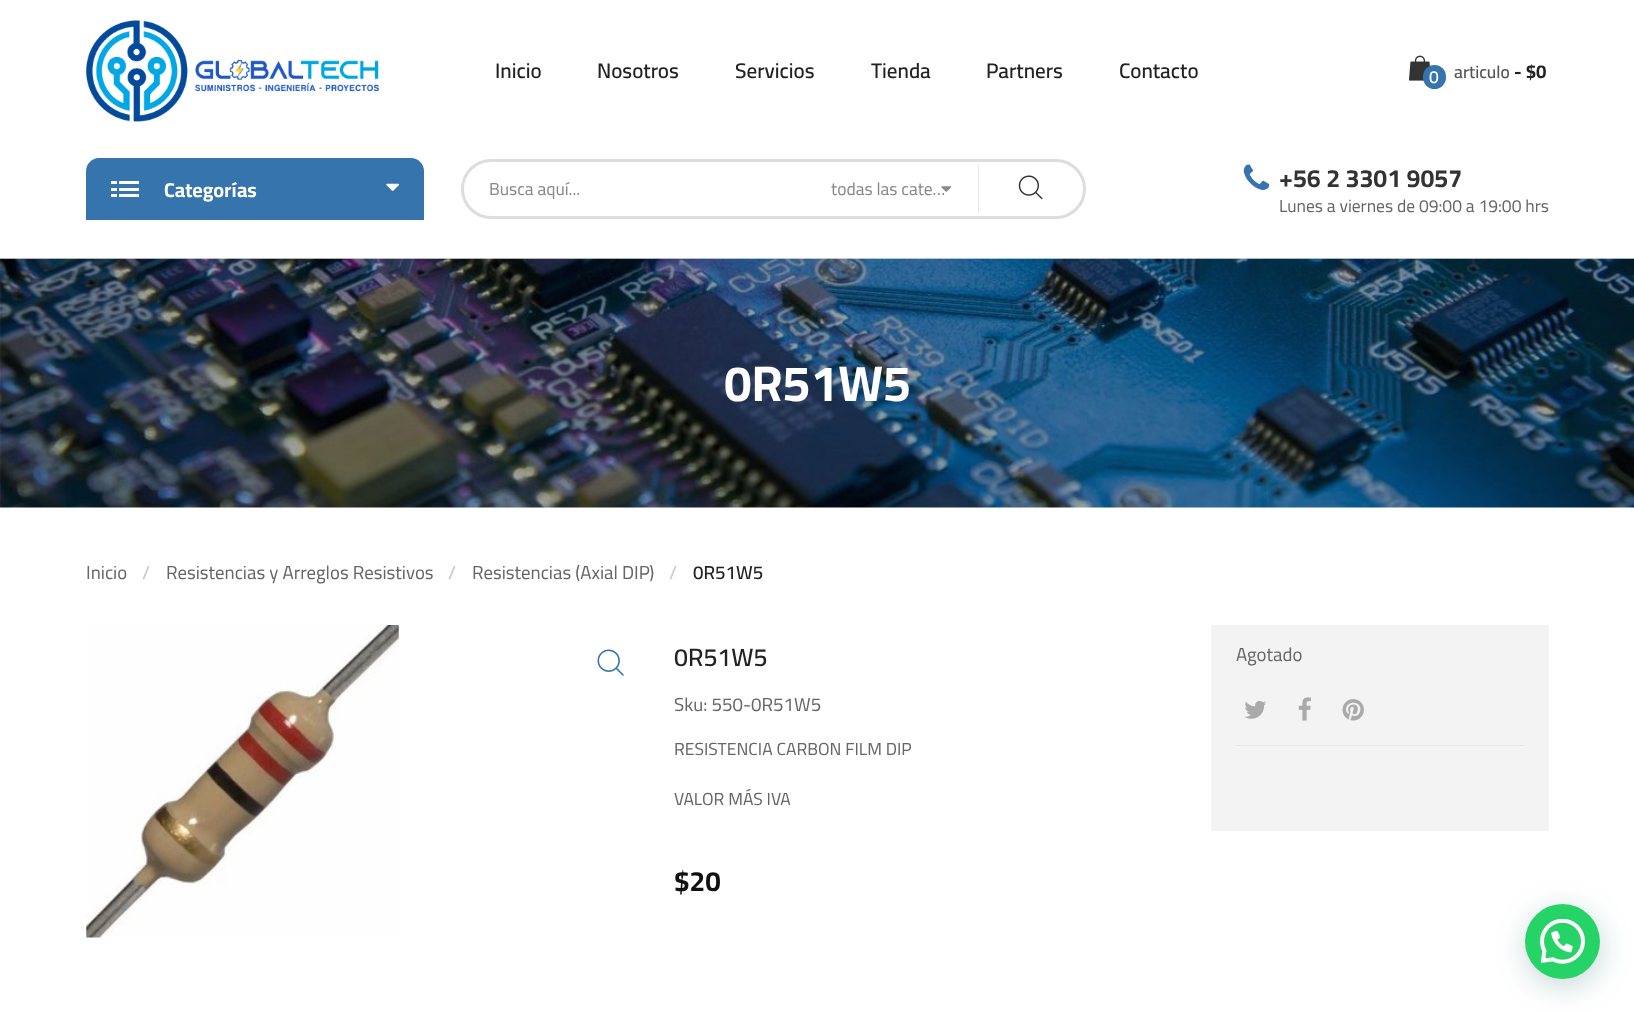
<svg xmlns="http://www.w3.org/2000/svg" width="1634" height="1013">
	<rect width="100%" height="100%" fill="#FFFFFF" />
	<rect x="0" y="258" width="1634" height="1" fill="#E6E6E6" />
	<image x="86" y="20" width="294" height="102" href="assets/img1.png" />
	<g font-family="Cairo" font-size="21" font-weight="600" fill="#222222">
		<text x="495" y="78">Inicio</text>
		<text x="597" y="78">Nosotros</text>
		<text x="735" y="78">Servicios</text>
		<text x="871" y="78">Tienda</text>
		<text x="986" y="78">Partners</text>
		<text x="1119" y="78">Contacto</text>
	</g>
	<image x="1409" y="55" width="21" height="26" href="assets/img2.png" />
	<rect x="1423" y="65" width="23" height="24" rx="11.5" fill="#3574AD" />
	<text x="1429" y="83" font-family="Cairo" font-size="17.5" font-weight="600" fill="#FFFFFF">0</text>
	<text x="1454" y="78" font-family="Cairo" font-size="17.5" font-weight="600" fill="#555555">articulo</text>
	<text x="1514" y="78" font-family="Cairo" font-size="18.75" font-weight="700" fill="#222222">- $0</text>
	<path d="M99 158H411C418 158 424 164 424 171V220H86V171C86 164 92 158 99 158Z" fill="#3574AD" />
	<rect x="111" y="181" width="6" height="3" fill="#FFFFFF" />
	<rect x="119" y="181" width="20" height="3" fill="#FFFFFF" />
	<rect x="111" y="188" width="6" height="3" fill="#FFFFFF" />
	<rect x="119" y="188" width="20" height="3" fill="#FFFFFF" />
	<rect x="111" y="194" width="6" height="3" fill="#FFFFFF" />
	<rect x="119" y="194" width="20" height="3" fill="#FFFFFF" />
	<text x="164" y="197" font-family="Cairo" font-size="20" font-weight="700" fill="#FFFFFF">Categorías</text>
	<image x="386" y="183" width="14" height="8" href="assets/img3.png" />
	<rect x="462.5" y="160.5" width="622" height="57" rx="28.5" fill="none" stroke="#DDDDDD" stroke-width="3" />
	<text x="489" y="195" font-family="Cairo" font-size="17.5" fill="#888888">Busca aquí...</text>
	<path d="M979 164V214L978 211V166Z" fill="#E6E6E6" />
	<text x="831" y="195" font-family="Cairo" font-size="17.5" fill="#888888">todas las cate…</text>
	<image x="941" y="186" width="11" height="6" href="assets/img4.png" />
	<image x="1018" y="175" width="25" height="25" href="assets/img5.png" />
	<image x="1243" y="164" width="27" height="26" href="assets/img6.png" />
	<text x="1279" y="187" font-family="Cairo" font-size="25" font-weight="700" fill="#333333">+56 2 3301 9057</text>
	<text x="1279" y="212" font-family="Cairo" font-size="17.5" fill="#666666">Lunes a viernes de 09:00 a 19:00 hrs</text>
	<image x="0" y="258" width="1634" height="250" href="assets/img7.png" />
	<text x="724" y="401" font-family="Cairo" font-size="50" font-weight="700" fill="#FFFFFF">0R51W5</text>
	<text x="86" y="579" font-family="Cairo" font-size="18.75" fill="#666666">Inicio</text>
	<text x="142" y="579" font-family="Cairo" font-size="18.75" font-weight="600" fill="#CCCCCC">/</text>
	<text x="166" y="579" font-family="Cairo" font-size="18.75" fill="#666666">Resistencias y Arreglos Resistivos</text>
	<text x="448" y="579" font-family="Cairo" font-size="18.75" font-weight="600" fill="#CCCCCC">/</text>
	<text x="472" y="579" font-family="Cairo" font-size="18.75" fill="#666666">Resistencias (Axial DIP)</text>
	<text x="669" y="579" font-family="Cairo" font-size="18.75" font-weight="600" fill="#CCCCCC">/</text>
	<text x="693" y="579" font-family="Cairo" font-size="18.75" font-weight="600" fill="#222222">0R51W5</text>
	<image x="86" y="625" width="313" height="313" href="assets/img8.png" />
	<image x="597" y="649" width="27" height="27" href="assets/img9.png" />
	<text x="674" y="666" font-family="Cairo" font-size="25" font-weight="600" fill="#222222">0R51W5</text>
	<text x="674" y="711" font-family="Cairo" font-size="18.75" fill="#666666">Sku: 550-0R51W5</text>
	<g font-family="Cairo" font-size="17.5" fill="#666666">
		<text x="674" y="755">RESISTENCIA CARBON FILM DIP</text>
		<text x="674" y="805">VALOR MÁS IVA</text>
	</g>
	<text x="674" y="891" font-family="Cairo" font-size="28" font-weight="700" fill="#111111">$20</text>
	<rect x="1211" y="625" width="338" height="206" fill="#F3F3F3" />
	<text x="1236" y="661" font-family="Cairo" font-size="18.75" fill="#666666">Agotado</text>
	<image x="1244" y="700" width="22" height="19" href="assets/img10.png" />
	<image x="1298" y="697" width="13" height="24" href="assets/img11.png" />
	<image x="1342" y="699" width="22" height="22" href="assets/img12.png" />
	<rect x="1236" y="745" width="288" height="1" fill="#E6E6E6" />
	<rect x="1526" y="911" width="75" height="75" rx="37.5" fill="#075E54" fill-opacity="0.24" filter="blur(15px)" />
	<circle cx="1562.5" cy="941.5" r="37.5" fill="#25D366" />
	<image x="1540" y="919" width="45" height="45" href="assets/img13.png" />
</svg>
